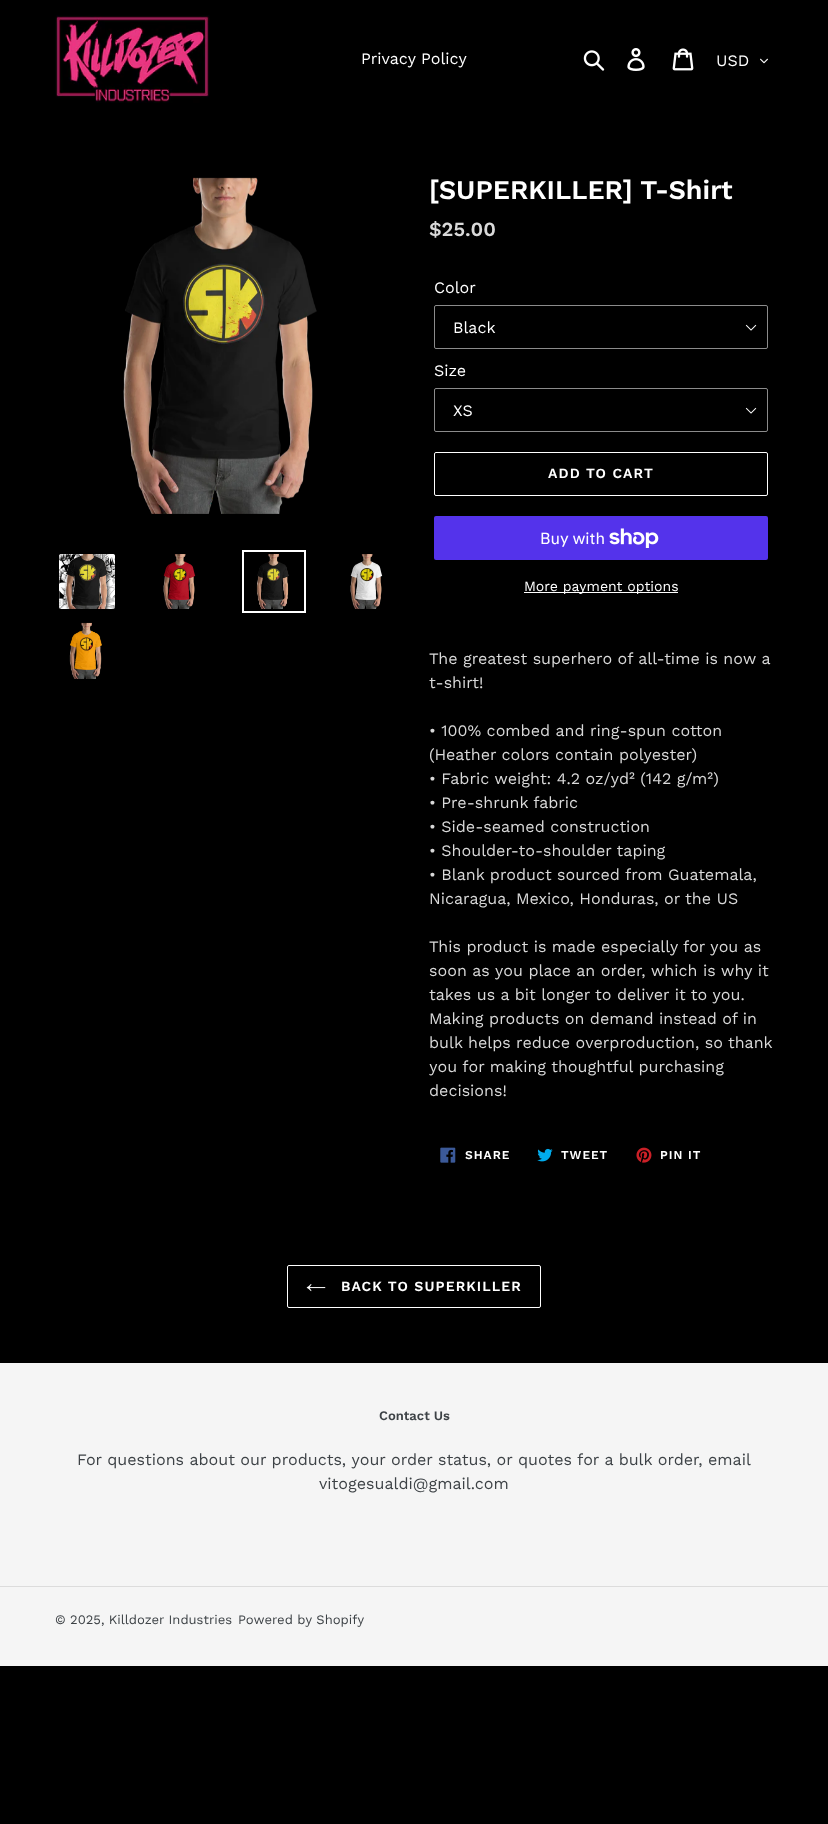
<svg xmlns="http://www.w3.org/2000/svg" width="828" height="1824">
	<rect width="100%" height="100%" fill="#000000" />
	<image x="55" y="15" width="155" height="88" href="assets/img1.png" />
	<text x="361" y="64" font-family="Work Sans" font-size="16" fill="#FFFFFF">Privacy Policy</text>
	<image x="583" y="50" width="22" height="21" href="assets/img2.png" />
	<image x="627" y="48" width="18" height="23" href="assets/img3.png" />
	<image x="672" y="48" width="22" height="23" href="assets/img4.png" />
	<text x="716" y="66" font-family="Work Sans" font-size="16" fill="#FFFFFF">USD</text>
	<image x="760" y="58" width="8" height="6" href="assets/img5.png" />
	<image x="123" y="177" width="194" height="337" href="assets/img6.png" />
	<image x="59" y="554" width="56" height="55" href="assets/img7.png" />
	<image x="163" y="554" width="33" height="55" href="assets/img8.png" />
	<rect x="243" y="551" width="62" height="61" fill="none" stroke="#FFFFFF" stroke-width="2" />
	<image x="256" y="554" width="33" height="55" href="assets/img9.png" />
	<image x="350" y="554" width="33" height="55" href="assets/img10.png" />
	<image x="69" y="622" width="33" height="57" href="assets/img11.png" />
	<text x="429" y="199" font-family="Work Sans" font-size="27" font-weight="600" fill="#FFFFFF">[SUPERKILLER] T-Shirt</text>
	<text x="429" y="236" font-family="Work Sans" font-size="20" font-weight="600" fill="#D9D9D9">$25.00</text>
	<text x="434" y="293" font-family="Work Sans" font-size="16" fill="#FFFFFF">Color</text>
	<image x="745" y="324" width="12" height="7" href="assets/img12.png" />
	<rect x="434.5" y="305.5" width="333" height="43" rx="1.5" fill="none" stroke="#8B8B8B" />
	<g font-family="Work Sans" font-size="16" fill="#FFFFFF">
		<text x="453" y="333">Black</text>
		<text x="434" y="376">Size</text>
	</g>
	<image x="745" y="407" width="12" height="7" href="assets/img12.png" />
	<rect x="434.5" y="388.5" width="333" height="43" rx="1.5" fill="none" stroke="#8B8B8B" />
	<text x="453" y="416" font-family="Work Sans" font-size="16" fill="#FFFFFF">XS</text>
	<rect x="434.5" y="452.5" width="333" height="43" rx="1.5" fill="none" stroke="#FFFFFF" />
	<text x="548" y="478" font-family="Work Sans" font-size="14" font-weight="600" letter-spacing="1.1" fill="#FFFFFF">ADD TO CART</text>
	<rect x="434" y="516" width="334" height="44" rx="2" fill="#5433EB" />
	<text x="540" y="544" font-family="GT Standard" font-size="16" fill="#FFFFFF">Buy with</text>
	<image x="609" y="528" width="50" height="20" href="assets/img13.png" />
	<rect x="524" y="592" width="154" height="1" fill="#FFFFFF" />
	<text x="524" y="591" font-family="Work Sans" font-size="14" fill="#FFFFFF">More payment options</text>
	<g font-family="Work Sans" font-size="16" fill="#D9D9D9">
		<text x="429" y="664">The greatest superhero of all-time is now a</text>
		<text x="429" y="688">t-shirt!</text>
		<text x="429" y="736">• 100% combed and ring-spun cotton</text>
		<text x="429" y="760">(Heather colors contain polyester)</text>
		<text x="429" y="784">• Fabric weight: 4.2 oz/yd² (142 g/m²)</text>
		<text x="429" y="808">• Pre-shrunk fabric</text>
		<text x="429" y="832">• Side-seamed construction</text>
		<text x="429" y="856">• Shoulder-to-shoulder taping</text>
		<text x="429" y="880">• Blank product sourced from Guatemala,</text>
		<text x="429" y="904">Nicaragua, Mexico, Honduras, or the US</text>
		<text x="429" y="952">This product is made especially for you as</text>
		<text x="429" y="976">soon as you place an order, which is why it</text>
		<text x="429" y="1000">takes us a bit longer to deliver it to you.</text>
		<text x="429" y="1024">Making products on demand instead of in</text>
		<text x="429" y="1048">bulk helps reduce overproduction, so thank</text>
		<text x="429" y="1072">you for making thoughtful purchasing</text>
		<text x="429" y="1096">decisions!</text>
	</g>
	<image x="440" y="1147" width="16" height="16" href="assets/img14.png" />
	<text x="465" y="1159" font-family="Work Sans" font-size="12" font-weight="600" letter-spacing="1" fill="#FFFFFF">SHARE</text>
	<image x="537" y="1148" width="16" height="14" href="assets/img15.png" />
	<text x="561" y="1159" font-family="Work Sans" font-size="12" font-weight="600" letter-spacing="1" fill="#FFFFFF">TWEET</text>
	<image x="636" y="1147" width="16" height="16" href="assets/img16.png" />
	<text x="660" y="1159" font-family="Work Sans" font-size="12" font-weight="600" letter-spacing="1" fill="#FFFFFF">PIN IT</text>
	<rect x="287.5" y="1265.5" width="253" height="42" rx="1.5" fill="none" stroke="#FFFFFF" />
	<image x="306" y="1284" width="20" height="8" href="assets/img17.png" />
	<text x="341" y="1291" font-family="Work Sans" font-size="14" font-weight="600" letter-spacing="1.1" fill="#FFFFFF">BACK TO SUPERKILLER</text>
	<rect x="0" y="1363" width="828" height="303" fill="#F5F5F5" />
	<text x="379" y="1420" font-family="Work Sans" font-size="13" font-weight="600" fill="#3D4246">Contact Us</text>
	<g font-family="Work Sans" font-size="16" fill="#3D4246">
		<text x="77" y="1465">For questions about our products, your order status, or quotes for a bulk order, email</text>
		<text x="319" y="1489">vitogesualdi@gmail.com</text>
	</g>
	<rect x="0" y="1586" width="828" height="1" fill="#DCDCDC" />
	<g font-family="Work Sans" font-size="13" fill="#3D4246">
		<text x="55" y="1624">© 2025, Killdozer Industries</text>
		<text x="238" y="1624">Powered by Shopify</text>
	</g>
</svg>
